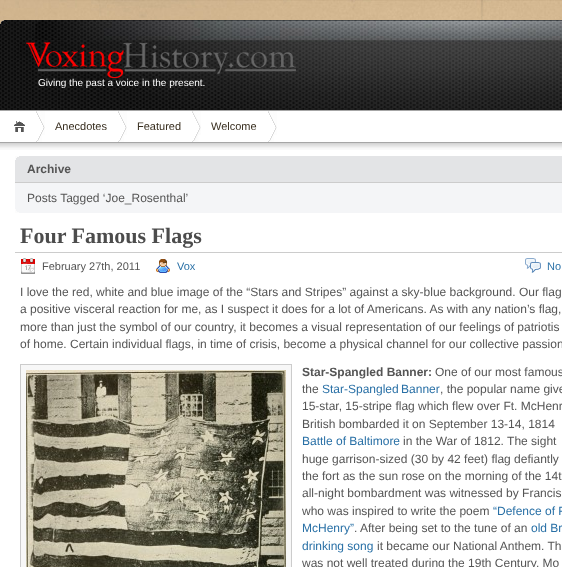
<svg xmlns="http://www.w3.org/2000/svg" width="562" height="567">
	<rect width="100%" height="100%" fill="#FFFFFF" />
	<image x="0" y="0" width="562" height="24" href="assets/img1.png" />
	<image x="0" y="20" width="562" height="90" href="assets/img2.png" />
	<rect x="0" y="110" width="562" height="1" fill="#A6A6A6" />
	<text x="38" y="86" font-family="Liberation Sans" font-size="10" fill="#FFFFFF">Giving the past a voice in the present.</text>
	<rect x="0" y="142" width="562" height="1" fill="#A6A6A6" />
	<image x="14" y="121" width="11" height="11" href="assets/img3.png" />
	<image x="36" y="111" width="9" height="31" href="assets/img4.png" />
	<text x="55" y="130" font-family="Liberation Sans" font-size="11" fill="#382E1F">Anecdotes</text>
	<image x="118" y="111" width="9" height="31" href="assets/img4.png" />
	<text x="137" y="130" font-family="Liberation Sans" font-size="11" fill="#382E1F">Featured</text>
	<image x="192" y="111" width="9" height="31" href="assets/img5.png" />
	<text x="211" y="130" font-family="Liberation Sans" font-size="11" fill="#382E1F">Welcome</text>
	<image x="268" y="111" width="9" height="31" href="assets/img4.png" />
	<image x="0" y="143" width="562" height="7" href="assets/img6.png" />
	<rect x="15" y="156" width="547" height="26" fill="#E3E4E6" />
	<image x="15" y="156" width="4" height="4" href="assets/img7.png" />
	<rect x="15" y="182" width="547" height="1" fill="#CCCCCC" />
	<text x="27" y="173" font-family="Liberation Sans" font-size="12" font-weight="700" fill="#555555">Archive</text>
	<rect x="15" y="183" width="547" height="30" fill="#F4F5F7" />
	<image x="15" y="209" width="4" height="4" href="assets/img8.png" />
	<text x="27" y="202" font-family="Liberation Sans" font-size="12" fill="#555555">Posts Tagged ‘Joe_Rosenthal’</text>
	<rect x="15" y="252" width="547" height="1" fill="#CCCCCC" />
	<text x="20" y="243" font-family="Liberation Serif" font-size="22" font-weight="700" fill="#4C4C4C">Four Famous Flags</text>
	<image x="21" y="258" width="14" height="16" href="assets/img9.png" />
	<text x="42" y="270" font-family="Liberation Sans" font-size="11" fill="#555555">February 27th, 2011</text>
	<image x="156" y="259" width="14" height="14" href="assets/img10.png" />
	<text x="177" y="270" font-family="Liberation Sans" font-size="11" fill="#2970A6">Vox</text>
	<image x="525" y="258" width="16" height="15" href="assets/img11.png" />
	<text x="547" y="270" font-family="Liberation Sans" font-size="11" fill="#2970A6">No</text>
	<g font-family="Liberation Sans" font-size="12" fill="#555555">
		<text x="20" y="296">I love the red, white and blue image of the “Stars and Stripes” against a sky-blue background. Our flag</text>
		<text x="20" y="313">a positive visceral reaction for me, as I suspect it does for a lot of Americans. As with any nation’s flag,</text>
		<text x="20" y="331">more than just the symbol of our country, it becomes a visual representation of our feelings of patriotis</text>
		<text x="20" y="348">of home. Certain individual flags, in time of crisis, become a physical channel for our collective passion</text>
	</g>
	<rect x="20.5" y="364.5" width="271" height="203" fill="#F7F7F7" stroke="#CCCCCC" />
	<image x="26" y="370" width="260" height="197" href="assets/img12.png" />
	<text x="302" y="376" font-family="Liberation Sans" font-size="12" font-weight="700" fill="#555555">Star-Spangled Banner:</text>
	<g font-family="Liberation Sans" font-size="12" fill="#555555">
		<text x="435" y="376">One of our most famous</text>
		<text x="302" y="393">the</text>
	</g>
	<text x="322" y="393" word-spacing="-1" font-family="Liberation Sans" font-size="12" fill="#2970A6">Star-Spangled Banner</text>
	<g font-family="Liberation Sans" font-size="12" fill="#555555">
		<text x="440" y="393">, the popular name give</text>
		<text x="302" y="410">15-star, 15-stripe flag which flew over Ft. McHenr</text>
		<text x="302" y="428">British bombarded it on September 13-14, 1814</text>
	</g>
	<text x="302" y="445" font-family="Liberation Sans" font-size="12" fill="#2970A6">Battle of Baltimore</text>
	<g font-family="Liberation Sans" font-size="12" fill="#555555">
		<text x="403" y="445">in the War of 1812. The sight</text>
		<text x="302" y="463">huge garrison-sized (30 by 42 feet) flag defiantly</text>
		<text x="302" y="480">the fort as the sun rose on the morning of the 14t</text>
		<text x="302" y="497">all-night bombardment was witnessed by Francis</text>
		<text x="302" y="515">who was inspired to write the poem</text>
	</g>
	<g font-family="Liberation Sans" font-size="12" fill="#2970A6">
		<text x="493" y="515">“Defence of F</text>
		<text x="302" y="532">McHenry”</text>
	</g>
	<text x="354" y="532" font-family="Liberation Sans" font-size="12" fill="#555555">. After being set to the tune of an</text>
	<g font-family="Liberation Sans" font-size="12" fill="#2970A6">
		<text x="531" y="532">old Br</text>
		<text x="302" y="550">drinking song</text>
	</g>
	<g font-family="Liberation Sans" font-size="12" fill="#555555">
		<text x="377" y="550">it became our National Anthem. Th</text>
		<text x="302" y="567">was not well treated during the 19th Century. Mo</text>
	</g>
</svg>
